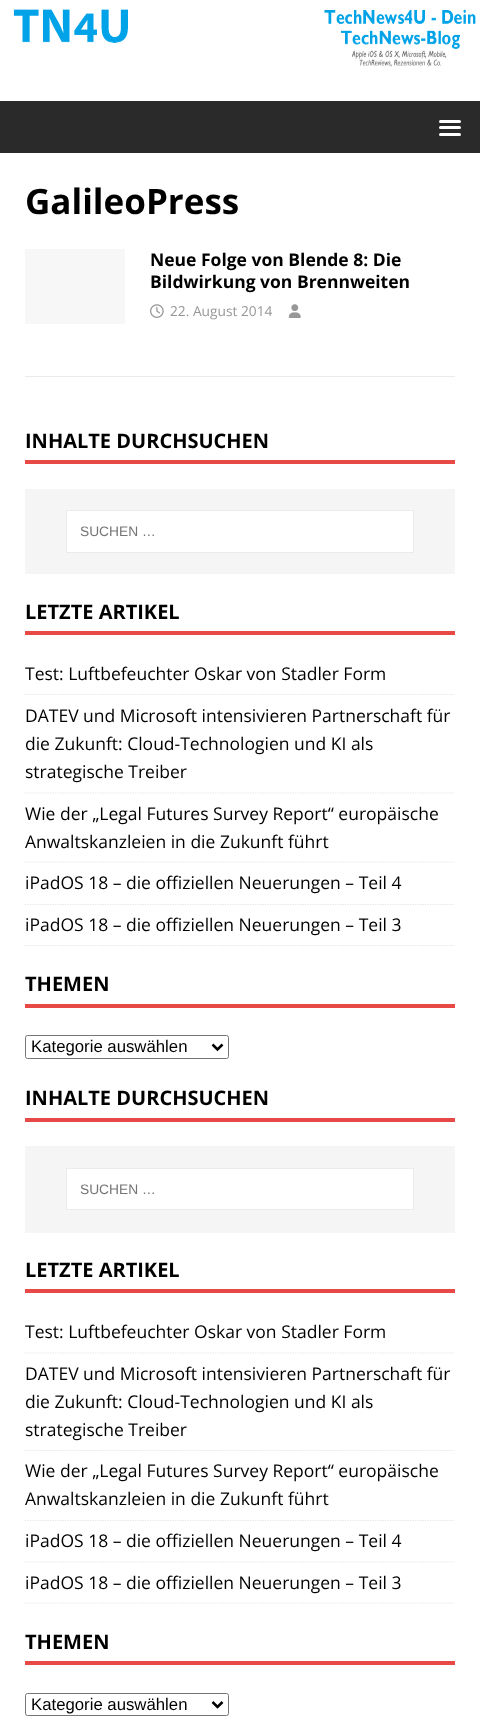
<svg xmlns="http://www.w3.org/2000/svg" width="480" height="1721">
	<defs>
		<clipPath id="clip1"><rect x="25" y="599" width="430" height="347" /></clipPath>
	</defs>
	<rect width="100%" height="100%" fill="#FFFFFF" />
	<image x="13" y="9" width="463" height="58" href="assets/img1.png" />
	<rect x="0" y="101" width="480" height="52" fill="#2A2A2A" />
	<rect x="439" y="120" width="22" height="3" rx="1.5" fill="#FFFFFF" />
	<rect x="439" y="126" width="22" height="3" rx="1.5" fill="#FFFFFF" />
	<rect x="439" y="133" width="22" height="3" rx="1.5" fill="#FFFFFF" />
	<text x="25" y="214" font-family="Open Sans" font-size="35" font-weight="700" fill="#000000">GalileoPress</text>
	<rect x="25" y="376" width="430" height="1" fill="#EBEBEB" />
	<rect x="25" y="249" width="100" height="75" fill="#F7F7F7" />
	<g font-family="Open Sans" font-size="17.5" font-weight="700" fill="#000000">
		<text x="150" y="266">Neue Folge von Blende 8: Die</text>
		<text x="150" y="288">Bildwirkung von Brennweiten</text>
	</g>
	<image x="150" y="304" width="14" height="14" href="assets/img2.png" />
	<text x="170" y="316" font-family="Open Sans" font-size="13.75" fill="#979797">22. August 2014</text>
	<image x="288" y="304" width="13" height="14" href="assets/img3.png" />
	<rect x="25" y="460" width="430" height="4" fill="#E64946" />
	<text x="25" y="448" font-family="Open Sans" font-size="20" font-weight="700" fill="#000000">INHALTE DURCHSUCHEN</text>
	<rect x="25" y="489" width="430" height="85" fill="#F5F5F5" />
	<rect x="66.5" y="510.5" width="347" height="42" fill="#FFFFFF" stroke="#EBEBEB" />
	<text x="80" y="536" font-family="Liberation Sans" font-size="13.75" fill="#757575">SUCHEN …</text>
	<rect x="25" y="631" width="430" height="4" fill="#E64946" />
	<text x="25" y="619" font-family="Open Sans" font-size="20" font-weight="700" fill="#000000">LETZTE ARTIKEL</text>
	<path d="M25 694.5H455" fill="none" stroke="#E5E5E5" stroke-width="1.2" stroke-dasharray="1.25 1.25" />
	<text x="25" y="680" font-family="Open Sans" font-size="17.5" fill="#000000">Test: Luftbefeuchter Oskar von Stadler Form</text>
	<path d="M25 793H455" fill="none" stroke="#E5E5E5" stroke-width="1.2" stroke-dasharray="1.25 1.25" />
	<g font-family="Open Sans" font-size="17.5" fill="#000000">
		<text x="25" y="722">DATEV und Microsoft intensivieren Partnerschaft für</text>
		<text x="25" y="750">die Zukunft: Cloud-Technologien und KI als</text>
		<text x="25" y="778">strategische Treiber</text>
	</g>
	<path d="M25 862H455" fill="none" stroke="#E5E5E5" stroke-width="1.2" stroke-dasharray="1.25 1.25" />
	<g font-family="Open Sans" font-size="17.5" fill="#000000">
		<text x="25" y="820">Wie der „Legal Futures Survey Report“ europäische</text>
		<text x="25" y="848">Anwaltskanzleien in die Zukunft führt</text>
	</g>
	<path d="M25 904.5H455" fill="none" stroke="#E5E5E5" stroke-width="1.2" stroke-dasharray="1.25 1.25" />
	<text x="25" y="889" font-family="Open Sans" font-size="17.5" fill="#000000">iPadOS 18 – die offiziellen Neuerungen – Teil 4</text>
	<g clip-path="url(#clip1)">
		<path d="M25 945.5H455" fill="none" stroke="#E5E5E5" stroke-width="1.2" stroke-dasharray="1.25 1.25" />
	</g>
	<text x="25" y="931" font-family="Open Sans" font-size="17.5" fill="#000000">iPadOS 18 – die offiziellen Neuerungen – Teil 3</text>
	<rect x="25" y="1004" width="430" height="4" fill="#E64946" />
	<text x="25" y="991" font-family="Open Sans" font-size="20" font-weight="700" fill="#000000">THEMEN</text>
	<rect x="25.5" y="1035.5" width="203" height="23" rx="2" fill="none" stroke="#767676" />
	<path d="M212.5 1044.5L217.5 1049.5L222.5 1044.5" fill="none" stroke="#000000" stroke-width="2.5" />
	<text x="31" y="1052" font-family="Liberation Sans" font-size="16.75" fill="#000000">Kategorie auswählen</text>
	<rect x="25" y="1118" width="430" height="4" fill="#E64946" />
	<text x="25" y="1105" font-family="Open Sans" font-size="20" font-weight="700" fill="#000000">INHALTE DURCHSUCHEN</text>
	<rect x="25" y="1146" width="430" height="87" fill="#F5F5F5" />
	<rect x="66.5" y="1168.5" width="347" height="41" fill="#FFFFFF" stroke="#EBEBEB" />
	<text x="80" y="1194" font-family="Liberation Sans" font-size="13.75" fill="#757575">SUCHEN …</text>
	<rect x="25" y="1289" width="430" height="4" fill="#E64946" />
	<text x="25" y="1277" font-family="Open Sans" font-size="20" font-weight="700" fill="#000000">LETZTE ARTIKEL</text>
	<path d="M25 1353H455" fill="none" stroke="#E5E5E5" stroke-width="1.2" stroke-dasharray="1.25 1.25" />
	<text x="25" y="1338" font-family="Open Sans" font-size="17.5" fill="#000000">Test: Luftbefeuchter Oskar von Stadler Form</text>
	<path d="M25 1450.5H455" fill="none" stroke="#E5E5E5" stroke-width="1.2" stroke-dasharray="1.25 1.25" />
	<g font-family="Open Sans" font-size="17.5" fill="#000000">
		<text x="25" y="1380">DATEV und Microsoft intensivieren Partnerschaft für</text>
		<text x="25" y="1408">die Zukunft: Cloud-Technologien und KI als</text>
		<text x="25" y="1436">strategische Treiber</text>
	</g>
	<path d="M25 1520.5H455" fill="none" stroke="#E5E5E5" stroke-width="1.2" stroke-dasharray="1.25 1.25" />
	<g font-family="Open Sans" font-size="17.5" fill="#000000">
		<text x="25" y="1477">Wie der „Legal Futures Survey Report“ europäische</text>
		<text x="25" y="1505">Anwaltskanzleien in die Zukunft führt</text>
	</g>
	<path d="M25 1562H455" fill="none" stroke="#E5E5E5" stroke-width="1.2" stroke-dasharray="1.25 1.25" />
	<text x="25" y="1547" font-family="Open Sans" font-size="17.5" fill="#000000">iPadOS 18 – die offiziellen Neuerungen – Teil 4</text>
	<path d="M25 1603H455" fill="none" stroke="#E5E5E5" stroke-width="1.2" stroke-dasharray="1.25 1.25" />
	<text x="25" y="1589" font-family="Open Sans" font-size="17.5" fill="#000000">iPadOS 18 – die offiziellen Neuerungen – Teil 3</text>
	<rect x="25" y="1661" width="430" height="4" fill="#E64946" />
	<text x="25" y="1649" font-family="Open Sans" font-size="20" font-weight="700" fill="#000000">THEMEN</text>
	<rect x="25.5" y="1693.5" width="203" height="22" rx="2" fill="none" stroke="#767676" />
	<path d="M212.5 1702L217.5 1707L222.5 1702" fill="none" stroke="#000000" stroke-width="2.5" />
	<text x="31" y="1710" font-family="Liberation Sans" font-size="16.75" fill="#000000">Kategorie auswählen</text>
</svg>
